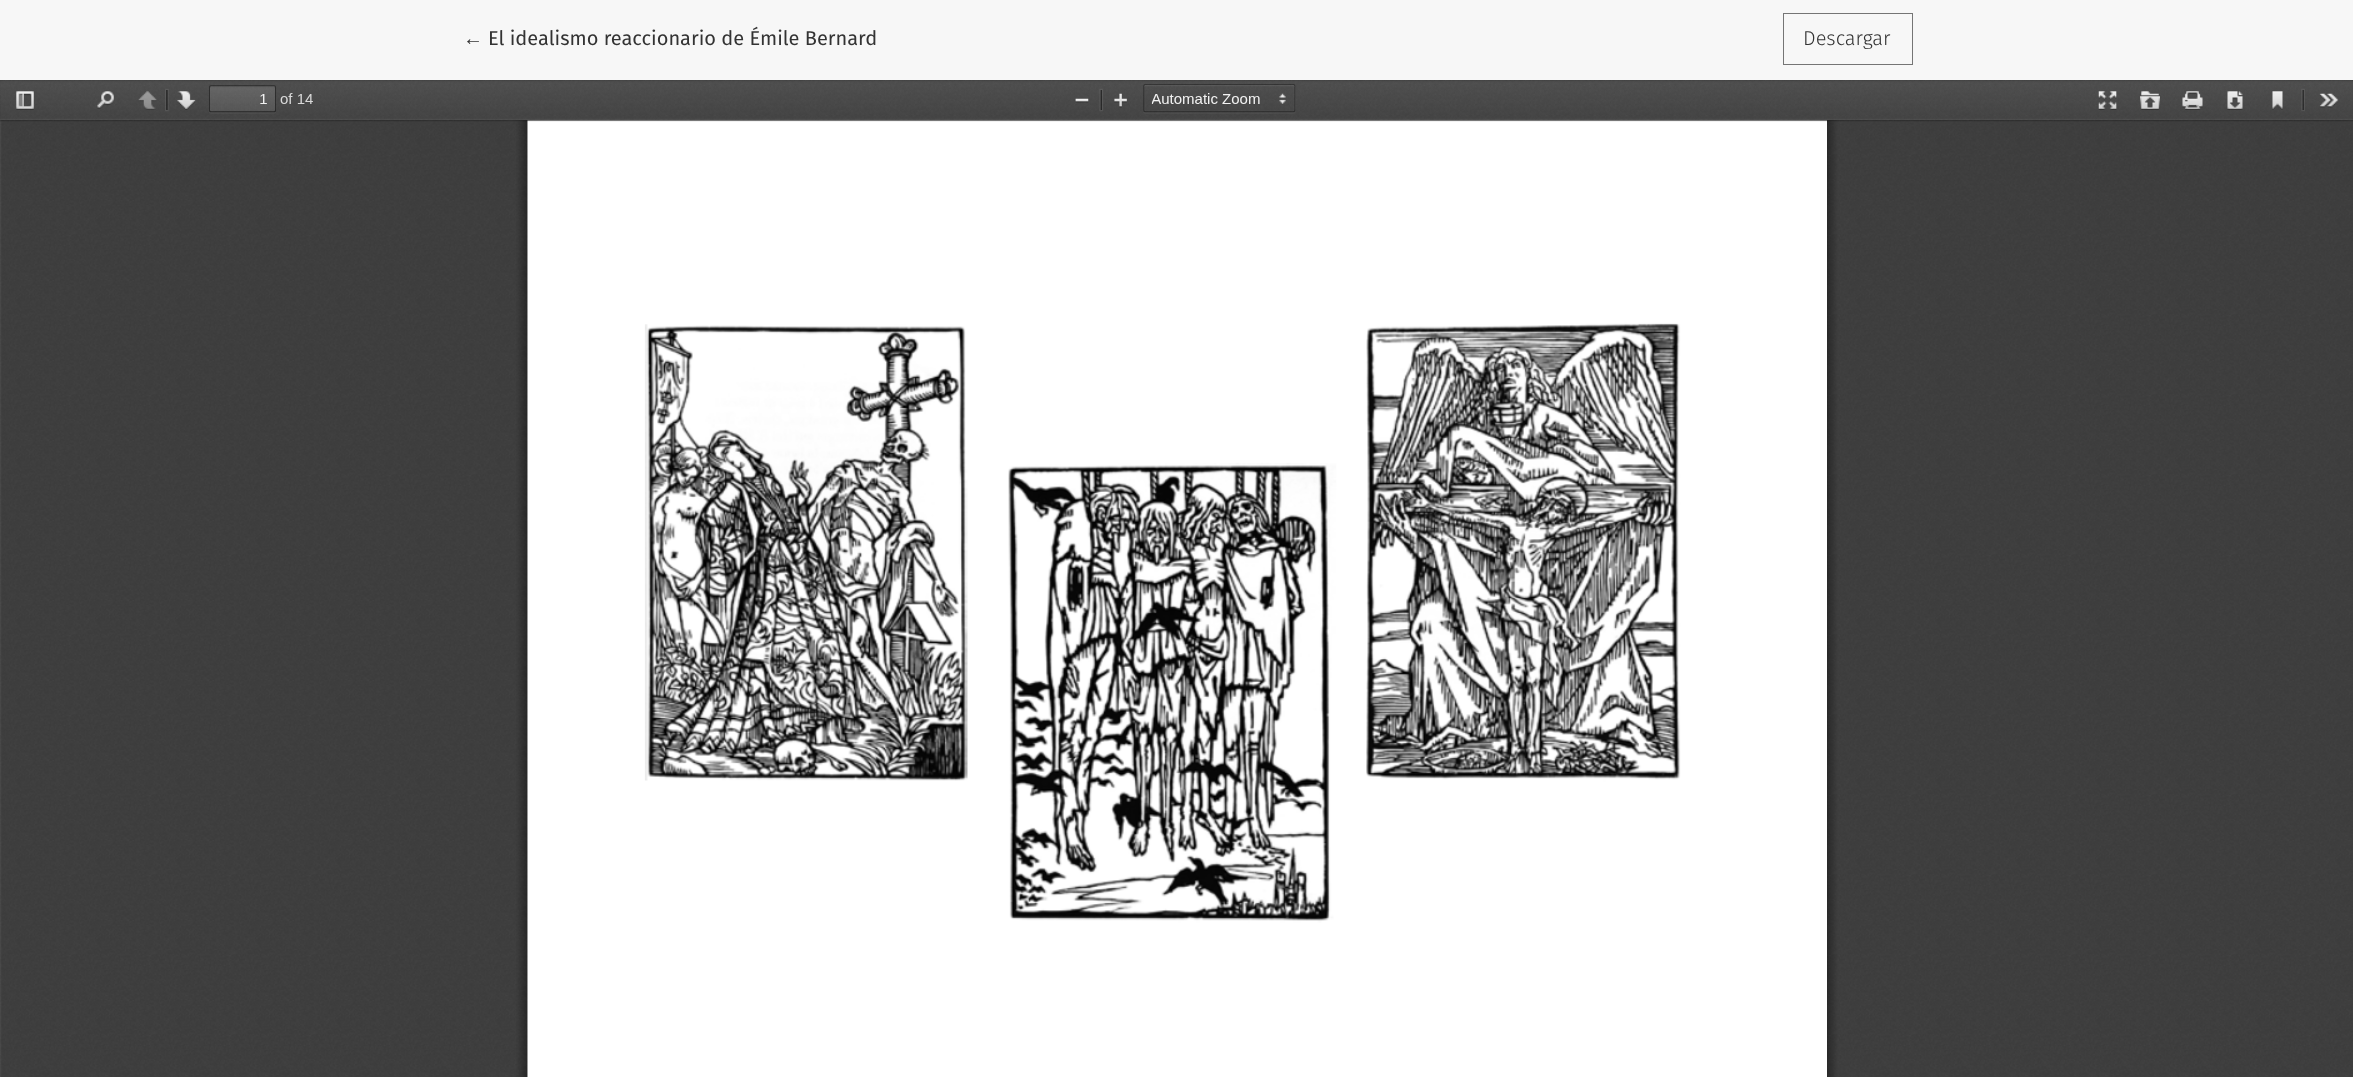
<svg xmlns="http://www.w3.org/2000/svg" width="2353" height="1077">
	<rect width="100%" height="100%" fill="#F7F7F7" />
	<text x="463" y="45" font-family="Liberation Sans" font-size="20" fill="#333333">←</text>
	<text x="488" y="45" font-family="Fira Sans" font-size="20" fill="#333333">El idealismo reaccionario de Émile Bernard</text>
	<rect x="1783.5" y="13.5" width="129" height="51" fill="none" stroke="#757575" />
	<text x="1803" y="45" font-family="Fira Sans" font-size="20" font-weight="300" fill="#333333">Descargar</text>
	<image x="0" y="80" width="2353" height="997" href="assets/img1.png" />
</svg>
